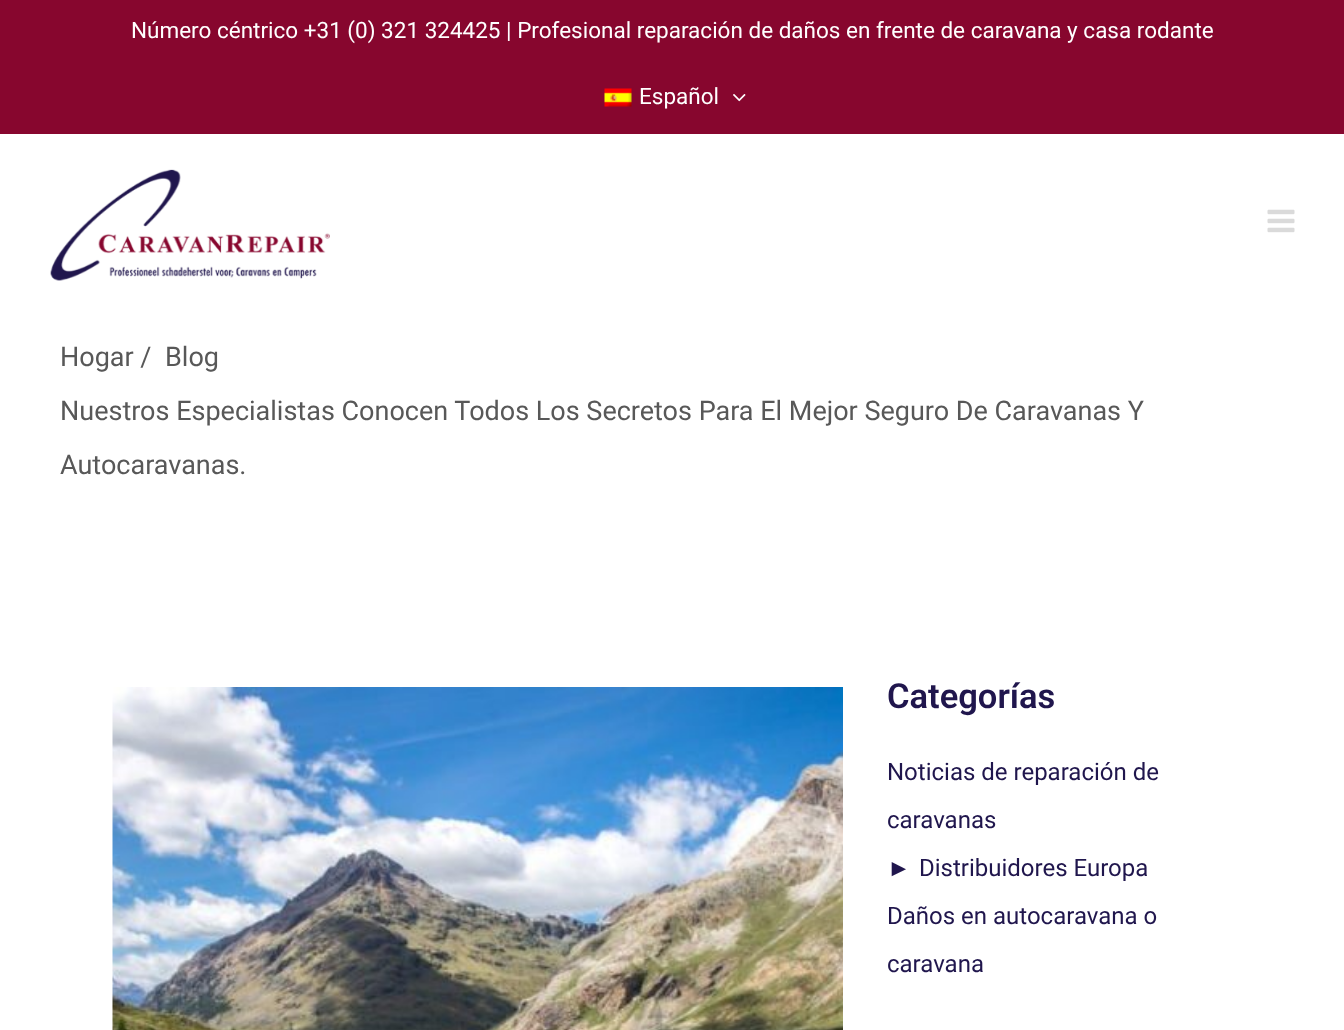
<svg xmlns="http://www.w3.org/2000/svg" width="1344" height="1030">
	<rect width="100%" height="100%" fill="#FFFFFF" />
	<rect x="0" y="0" width="1344" height="134" fill="#87062E" />
	<text x="131" y="38" font-family="Roboto" font-size="22.5" fill="#FFFFFF">Número céntrico +31 (0) 321 324425 | Profesional reparación de daños en frente de caravana y casa rodante</text>
	<image x="604" y="88" width="28" height="19" href="assets/img1.png" />
	<text x="639" y="104" font-family="Roboto" font-size="22.5" fill="#FFFFFF">Español</text>
	<image x="733" y="94" width="13" height="8" href="assets/img2.png" />
	<image x="50" y="169" width="280" height="112" href="assets/img3.png" />
	<image x="1267" y="209" width="28" height="24" href="assets/img4.png" />
	<g font-family="Roboto" font-size="27" fill="#585858">
		<text x="60" y="366">Hogar /</text>
		<text x="165" y="366">Blog</text>
		<text x="60" y="420">Nuestros Especialistas Conocen Todos Los Secretos Para El Mejor Seguro De Caravanas Y</text>
		<text x="60" y="474">Autocaravanas.</text>
	</g>
	<image x="112" y="687" width="731" height="343" href="assets/img5.png" />
	<text x="887" y="708" font-family="Roboto" font-size="34.5" font-weight="600" fill="#20164D">Categorías</text>
	<g font-family="Roboto" font-size="24" fill="#20164D">
		<text x="887" y="780">Noticias de reparación de</text>
		<text x="887" y="828">caravanas</text>
	</g>
	<text x="887" y="876" font-family="Liberation Sans" font-size="24" fill="#20164D">►</text>
	<g font-family="Roboto" font-size="24" fill="#20164D">
		<text x="919" y="876">Distribuidores Europa</text>
		<text x="887" y="924">Daños en autocaravana o</text>
		<text x="887" y="972">caravana</text>
	</g>
</svg>
